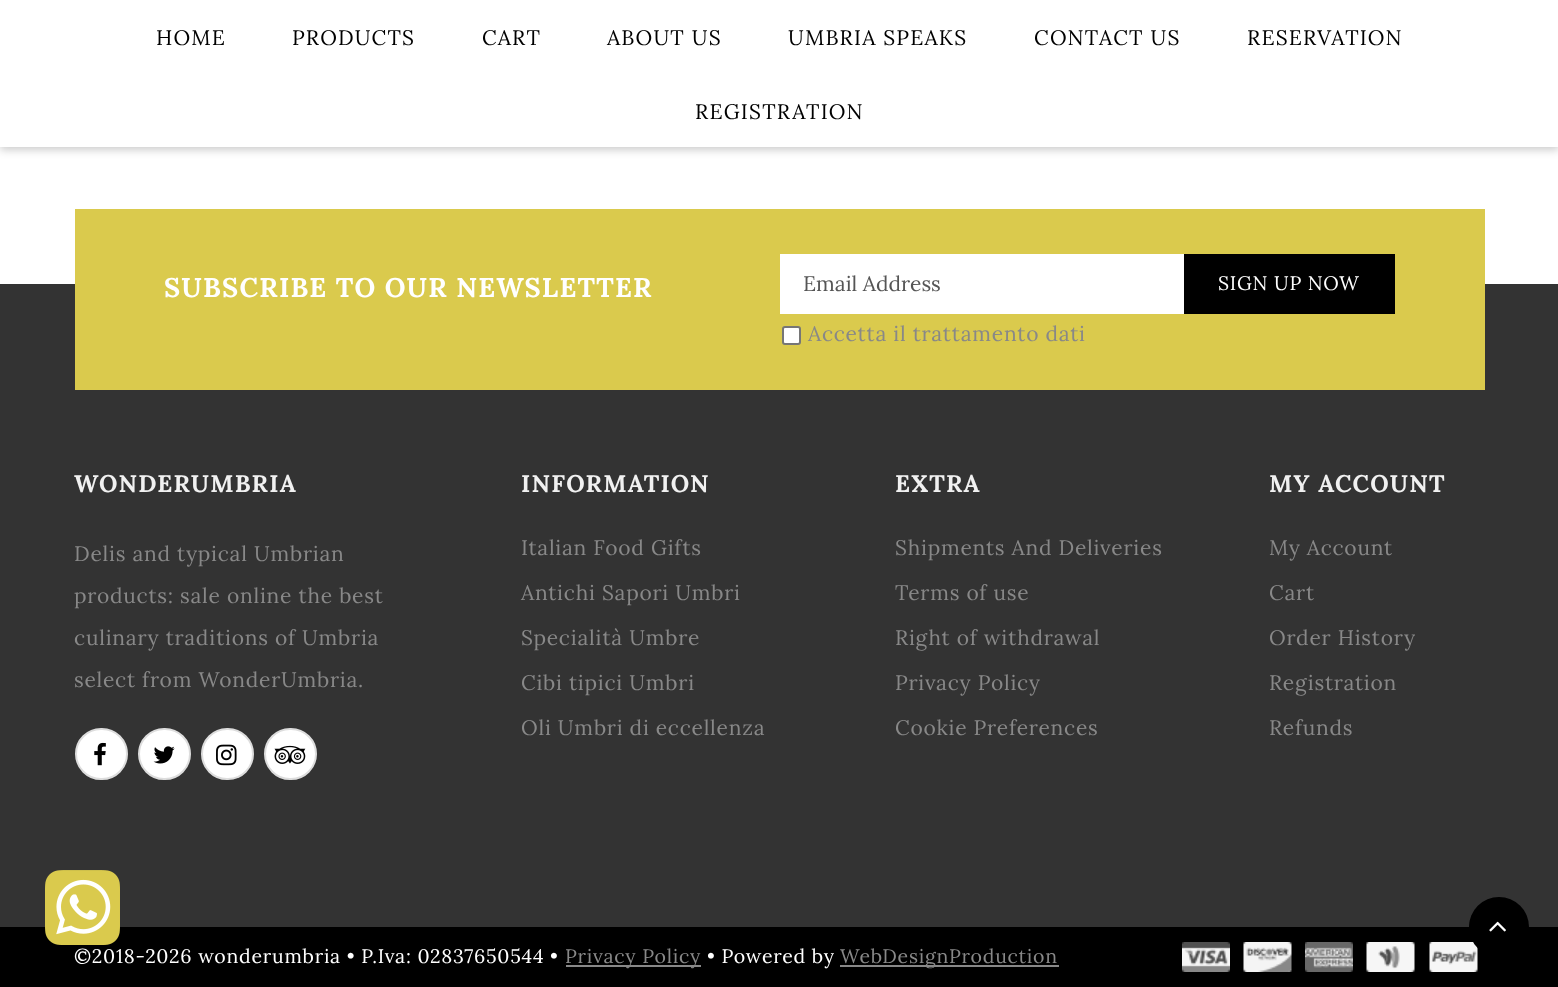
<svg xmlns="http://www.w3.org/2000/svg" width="1558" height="987">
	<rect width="100%" height="100%" fill="#FFFFFF" />
	<rect x="0" y="3" width="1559" height="147" fill="#000000" fill-opacity="0.2" filter="blur(4.5px)" />
	<rect x="0" y="0" width="1558" height="147" fill="#FFFFFF" />
	<g font-family="Lora" font-size="21" letter-spacing="1.2" fill="#000000">
		<text x="156" y="45">HOME</text>
		<text x="292" y="45">PRODUCTS</text>
		<text x="482" y="45">CART</text>
		<text x="607" y="45">ABOUT US</text>
		<text x="788" y="45">UMBRIA SPEAKS</text>
		<text x="1034" y="45">CONTACT US</text>
		<text x="1247" y="45">RESERVATION</text>
		<text x="695" y="119">REGISTRATION</text>
	</g>
	<rect x="0" y="284" width="1558" height="643" fill="#333333" />
	<rect x="75" y="209" width="1410" height="181" fill="#DACA4D" />
	<text x="164" y="297" font-family="Lora" font-size="27" font-weight="700" letter-spacing="1.2" fill="#FFFFFF">SUBSCRIBE TO OUR NEWSLETTER</text>
	<rect x="780" y="254" width="404" height="60" fill="#FFFFFF" />
	<text x="803" y="291" font-family="Lora" font-size="21" fill="#555555">Email Address</text>
	<rect x="1184" y="254" width="211" height="60" fill="#000000" />
	<text x="1218" y="290" font-family="Lora" font-size="19.5" letter-spacing="0.75" fill="#FFFFFF">SIGN UP NOW</text>
	<rect x="783" y="327" width="17" height="17" rx="2" fill="#FFFFFF" stroke="#767676" stroke-width="2" />
	<text x="808" y="341" font-family="Lora" font-size="21" letter-spacing="0.75" fill="#888888">Accetta il trattamento dati</text>
	<text x="74" y="492" font-family="Lora" font-size="24" font-weight="700" letter-spacing="1.2" fill="#F1F1F1">WONDERUMBRIA</text>
	<g font-family="Lora" font-size="21" letter-spacing="0.75" fill="#888888">
		<text x="74" y="561">Delis and typical Umbrian</text>
		<text x="74" y="603">products: sale online the best</text>
		<text x="74" y="645">culinary traditions of Umbria</text>
		<text x="74" y="687">select from WonderUmbria.</text>
	</g>
	<rect x="76" y="729" width="51" height="50" rx="25" fill="#FFFFFF" stroke="#DDDDDD" stroke-width="2" />
	<image x="94" y="742" width="12" height="24" href="assets/img1.png" />
	<rect x="139" y="729" width="51" height="50" rx="25" fill="#FFFFFF" stroke="#DDDDDD" stroke-width="2" />
	<image x="153" y="746" width="22" height="18" href="assets/img2.png" />
	<rect x="202" y="729" width="51" height="50" rx="25" fill="#FFFFFF" stroke="#DDDDDD" stroke-width="2" />
	<image x="216" y="744" width="21" height="22" href="assets/img3.png" />
	<rect x="265" y="729" width="51" height="50" rx="25" fill="#FFFFFF" stroke="#DDDDDD" stroke-width="2" />
	<image x="274" y="745" width="32" height="19" href="assets/img4.png" />
	<text x="521" y="492" font-family="Lora" font-size="24" font-weight="700" letter-spacing="1.2" fill="#F1F1F1">INFORMATION</text>
	<g font-family="Lora" font-size="21" letter-spacing="0.75" fill="#888888">
		<text x="521" y="555">Italian Food Gifts</text>
		<text x="521" y="600">Antichi Sapori Umbri</text>
		<text x="521" y="645">Specialità Umbre</text>
		<text x="521" y="690">Cibi tipici Umbri</text>
		<text x="521" y="735">Oli Umbri di eccellenza</text>
	</g>
	<text x="895" y="492" font-family="Lora" font-size="24" font-weight="700" letter-spacing="1.2" fill="#F1F1F1">EXTRA</text>
	<g font-family="Lora" font-size="21" letter-spacing="0.75" fill="#888888">
		<text x="895" y="555">Shipments And Deliveries</text>
		<text x="895" y="600">Terms of use</text>
		<text x="895" y="645">Right of withdrawal</text>
		<text x="895" y="690">Privacy Policy</text>
		<text x="895" y="735">Cookie Preferences</text>
	</g>
	<text x="1269" y="492" font-family="Lora" font-size="24" font-weight="700" letter-spacing="1.2" fill="#F1F1F1">MY ACCOUNT</text>
	<g font-family="Lora" font-size="21" letter-spacing="0.75" fill="#888888">
		<text x="1269" y="555">My Account</text>
		<text x="1269" y="600">Cart</text>
		<text x="1269" y="645">Order History</text>
		<text x="1269" y="690">Registration</text>
		<text x="1269" y="735">Refunds</text>
	</g>
	<rect x="0" y="927" width="1558" height="60" fill="#000000" />
	<text x="74" y="963" font-family="Lora" font-size="19.5" letter-spacing="0.75" fill="#FFFFFF">©2018-2026 wonderumbria • P.Iva: 02837650544 •</text>
	<rect x="566" y="965" width="135" height="2" fill="#888888" />
	<text x="565" y="963" font-family="Lora" font-size="19.5" letter-spacing="0.75" fill="#888888">Privacy Policy</text>
	<text x="707" y="963" font-family="Lora" font-size="19.5" letter-spacing="0.75" fill="#FFFFFF">• Powered by</text>
	<rect x="840" y="965" width="219" height="2" fill="#888888" />
	<text x="840" y="963" font-family="Lora" font-size="19.5" letter-spacing="0.75" fill="#888888">WebDesignProduction</text>
	<image x="1182" y="942" width="48" height="30" href="assets/img5.png" />
	<image x="1243" y="942" width="49" height="30" href="assets/img6.png" />
	<image x="1305" y="942" width="48" height="30" href="assets/img7.png" />
	<image x="1366" y="942" width="49" height="30" href="assets/img8.png" />
	<image x="1429" y="942" width="49" height="30" href="assets/img9.png" />
	<image x="45" y="870" width="75" height="75" href="assets/img10.png" />
	<circle cx="1499" cy="927" r="30" fill="#000000" />
	<image x="1489" y="921" width="17" height="11" href="assets/img11.png" />
</svg>
